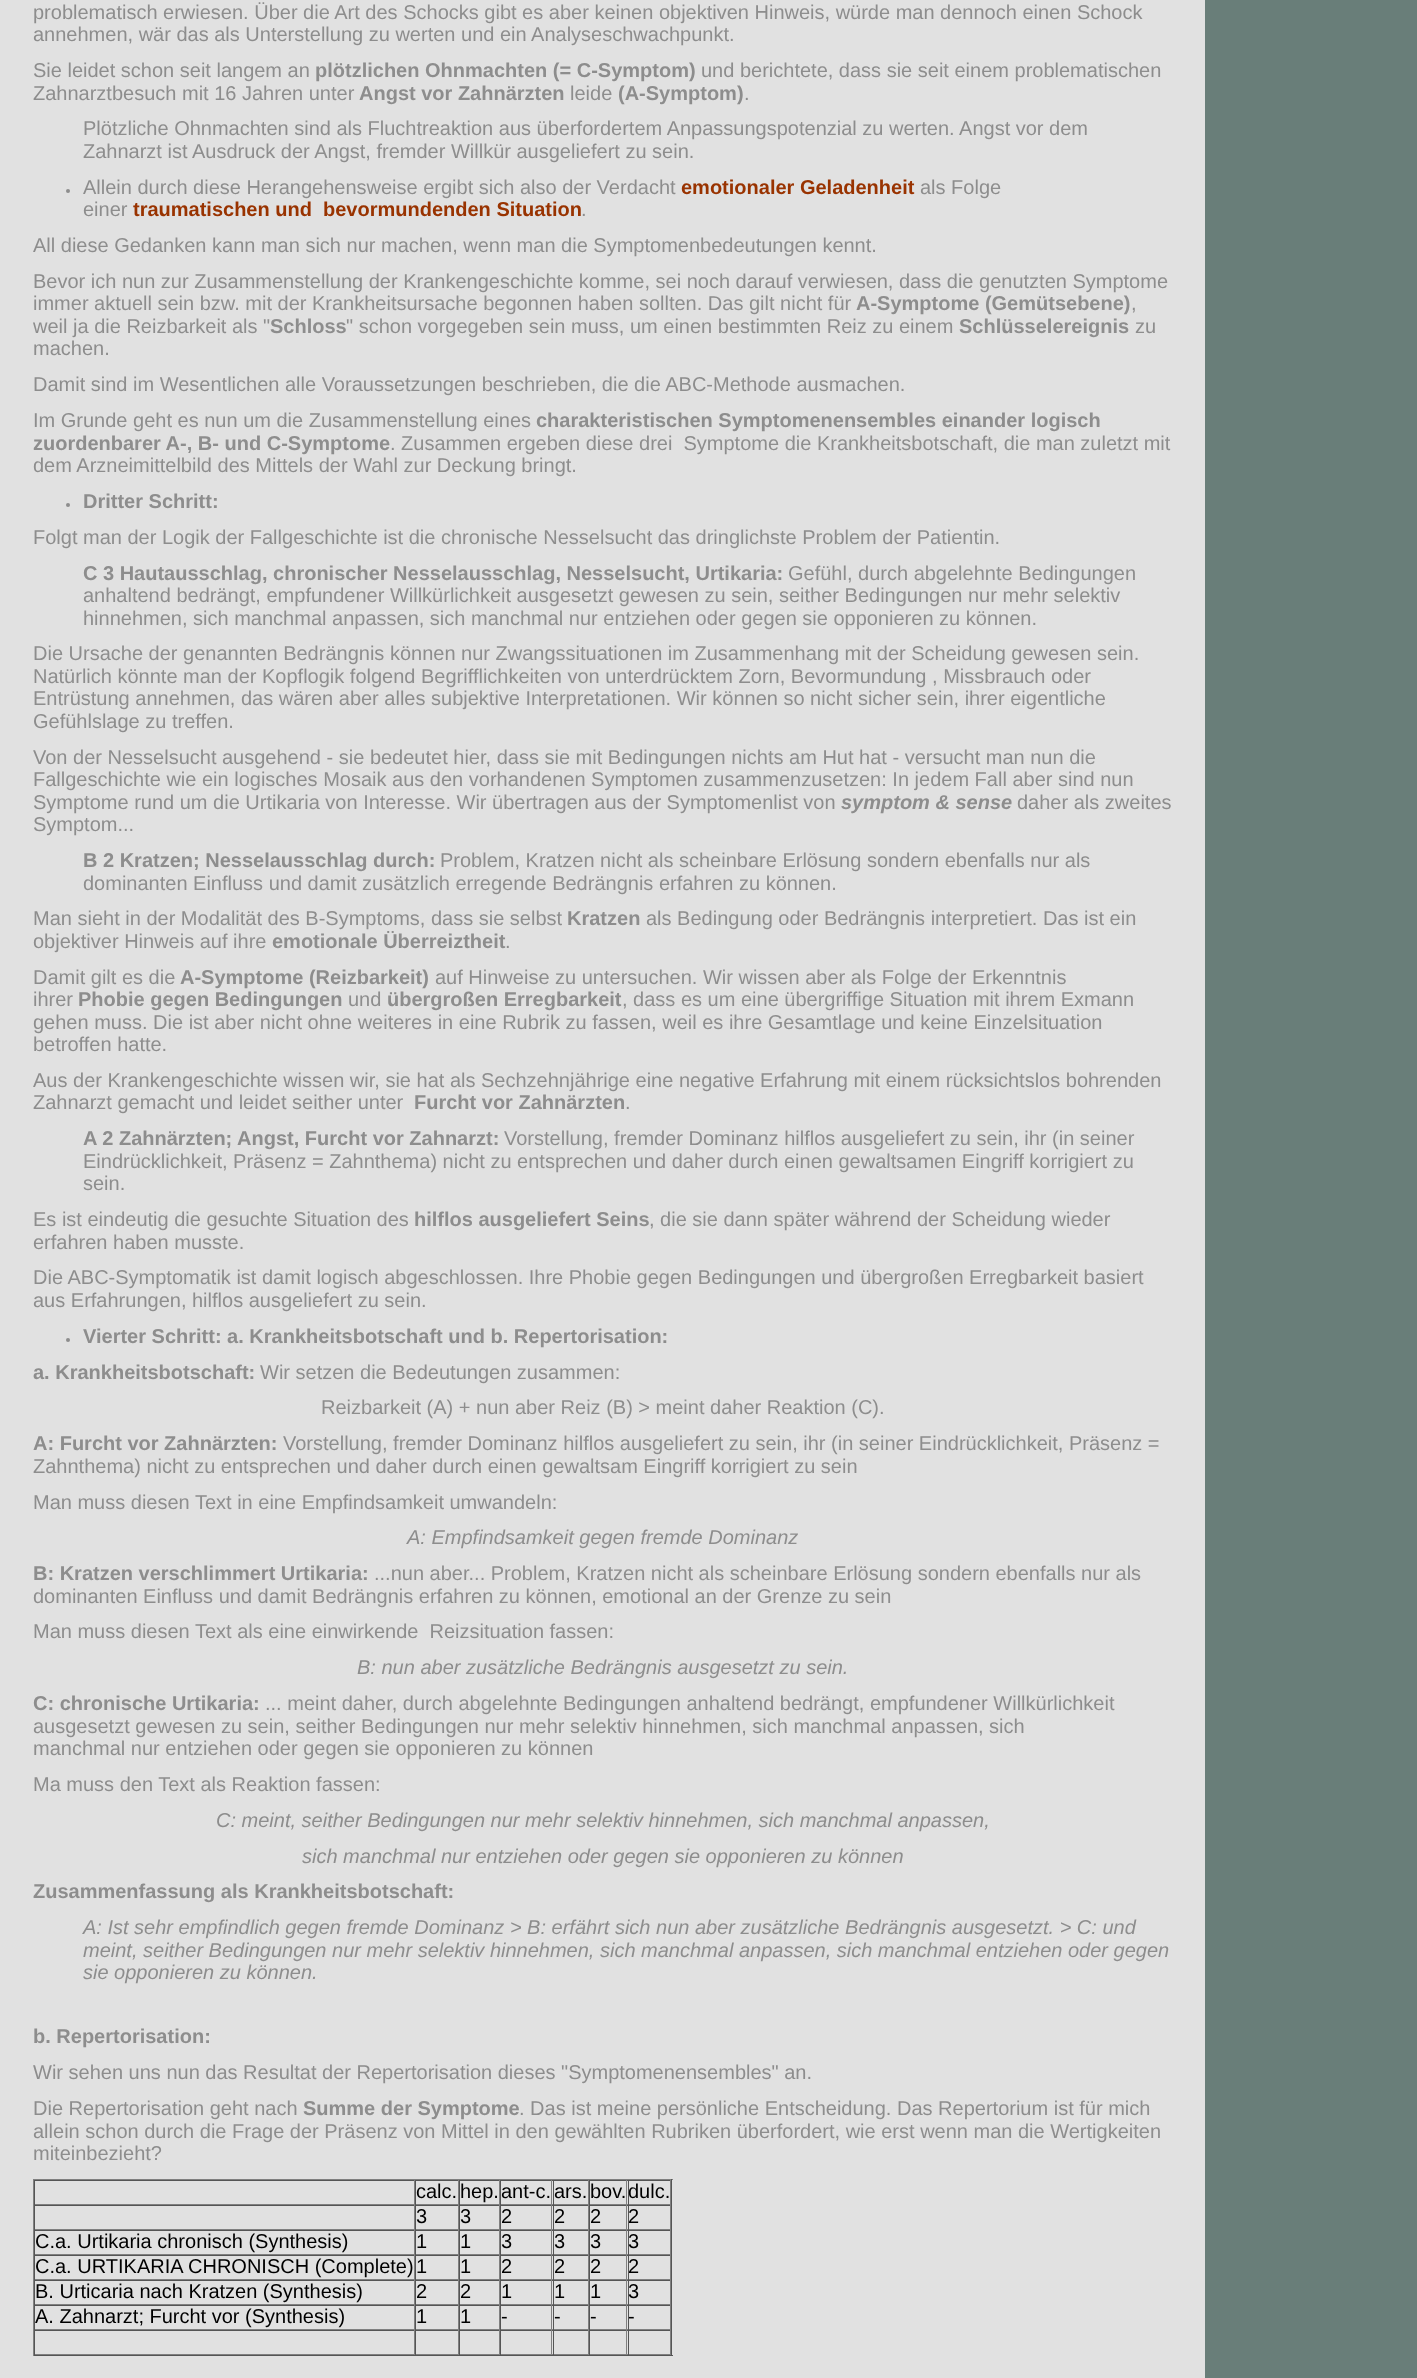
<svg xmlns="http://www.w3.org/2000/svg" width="1417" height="2378">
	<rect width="100%" height="100%" fill="#E1E1E1" />
	<g font-family="Liberation Sans" font-size="20" fill="#8D8D8D">
		<text x="33" y="19">problematisch erwiesen. Über die Art des Schocks gibt es aber keinen objektiven Hinweis, würde man dennoch einen Schock</text>
		<text x="33" y="41">annehmen, wär das als Unterstellung zu werten und ein Analyseschwachpunkt.</text>
		<text x="33" y="77">Sie leidet schon seit langem an</text>
	</g>
	<text x="315" y="77" font-family="Liberation Sans" font-size="20" font-weight="700" fill="#8D8D8D">plötzlichen Ohnmachten (= C-Symptom)</text>
	<g font-family="Liberation Sans" font-size="20" fill="#8D8D8D">
		<text x="701" y="77">und berichtete, dass sie seit einem problematischen</text>
		<text x="33" y="100">Zahnarztbesuch mit 16 Jahren unter</text>
	</g>
	<text x="359" y="100" font-family="Liberation Sans" font-size="20" font-weight="700" fill="#8D8D8D">Angst vor Zahnärzten</text>
	<text x="570" y="100" font-family="Liberation Sans" font-size="20" fill="#8D8D8D">leide</text>
	<text x="618" y="100" font-family="Liberation Sans" font-size="20" font-weight="700" fill="#8D8D8D">(A-Symptom)</text>
	<g font-family="Liberation Sans" font-size="20" fill="#8D8D8D">
		<text x="744" y="100">.</text>
		<text x="83" y="135">Plötzliche Ohnmachten sind als Fluchtreaktion aus überfordertem Anpassungspotenzial zu werten. Angst vor dem</text>
		<text x="83" y="158">Zahnarzt ist Ausdruck der Angst, fremder Willkür ausgeliefert zu sein.</text>
	</g>
	<circle cx="68" cy="191" r="2" fill="#8D8D8D" />
	<text x="83" y="194" font-family="Liberation Sans" font-size="20" fill="#8D8D8D">Allein durch diese Herangehensweise ergibt sich also der Verdacht</text>
	<text x="681" y="194" font-family="Liberation Sans" font-size="20" font-weight="700" fill="#993300">emotionaler Geladenheit</text>
	<g font-family="Liberation Sans" font-size="20" fill="#8D8D8D">
		<text x="920" y="194">als Folge</text>
		<text x="83" y="216">einer</text>
	</g>
	<text x="133" y="216" font-family="Liberation Sans" font-size="20" font-weight="700" fill="#993300" xml:space="preserve">traumatischen und  bevormundenden Situation</text>
	<g font-family="Liberation Sans" font-size="20" fill="#8D8D8D">
		<text x="581" y="216">.</text>
		<text x="33" y="252">All diese Gedanken kann man sich nur machen, wenn man die Symptomenbedeutungen kennt.</text>
		<text x="33" y="288">Bevor ich nun zur Zusammenstellung der Krankengeschichte komme, sei noch darauf verwiesen, dass die genutzten Symptome</text>
		<text x="33" y="310">immer aktuell sein bzw. mit der Krankheitsursache begonnen haben sollten. Das gilt nicht für</text>
	</g>
	<text x="856" y="310" font-family="Liberation Sans" font-size="20" font-weight="700" fill="#8D8D8D">A-Symptome (Gemütsebene)</text>
	<g font-family="Liberation Sans" font-size="20" fill="#8D8D8D">
		<text x="1131" y="310">,</text>
		<text x="33" y="333">weil ja die Reizbarkeit als "</text>
	</g>
	<text x="270" y="333" font-family="Liberation Sans" font-size="20" font-weight="700" fill="#8D8D8D">Schloss</text>
	<text x="346" y="333" font-family="Liberation Sans" font-size="20" fill="#8D8D8D">" schon vorgegeben sein muss, um einen bestimmten Reiz zu einem</text>
	<text x="959" y="333" font-family="Liberation Sans" font-size="20" font-weight="700" fill="#8D8D8D">Schlüsselereignis</text>
	<g font-family="Liberation Sans" font-size="20" fill="#8D8D8D">
		<text x="1135" y="333">zu</text>
		<text x="33" y="355">machen.</text>
		<text x="33" y="391">Damit sind im Wesentlichen alle Voraussetzungen beschrieben, die die ABC-Methode ausmachen.</text>
		<text x="33" y="427">Im Grunde geht es nun um die Zusammenstellung eines</text>
	</g>
	<g font-family="Liberation Sans" font-size="20" font-weight="700" fill="#8D8D8D">
		<text x="536" y="427">charakteristischen Symptomenensembles einander logisch</text>
		<text x="33" y="450">zuordenbarer A-, B- und C-Symptome</text>
	</g>
	<g font-family="Liberation Sans" font-size="20" fill="#8D8D8D">
		<text x="390" y="450" xml:space="preserve">. Zusammen ergeben diese drei  Symptome die Krankheitsbotschaft, die man zuletzt mit</text>
		<text x="33" y="472">dem Arzneimittelbild des Mittels der Wahl zur Deckung bringt.</text>
	</g>
	<circle cx="68" cy="505" r="2" fill="#8D8D8D" />
	<text x="83" y="508" font-family="Liberation Sans" font-size="20" font-weight="700" fill="#8D8D8D">Dritter Schritt:</text>
	<text x="33" y="544" font-family="Liberation Sans" font-size="20" fill="#8D8D8D">Folgt man der Logik der Fallgeschichte ist die chronische Nesselsucht das dringlichste Problem der Patientin.</text>
	<text x="83" y="580" font-family="Liberation Sans" font-size="20" font-weight="700" fill="#8D8D8D">C 3 Hautausschlag, chronischer Nesselausschlag, Nesselsucht, Urtikaria:</text>
	<g font-family="Liberation Sans" font-size="20" fill="#8D8D8D">
		<text x="788" y="580">Gefühl, durch abgelehnte Bedingungen</text>
		<text x="83" y="602">anhaltend bedrängt, empfundener Willkürlichkeit ausgesetzt gewesen zu sein, seither Bedingungen nur mehr selektiv</text>
		<text x="83" y="625">hinnehmen, sich manchmal anpassen, sich manchmal nur entziehen oder gegen sie opponieren zu können.</text>
		<text x="33" y="660">Die Ursache der genannten Bedrängnis können nur Zwangssituationen im Zusammenhang mit der Scheidung gewesen sein.</text>
		<text x="33" y="683">Natürlich könnte man der Kopflogik folgend Begrifflichkeiten von unterdrücktem Zorn, Bevormundung , Missbrauch oder</text>
		<text x="33" y="705">Entrüstung annehmen, das wären aber alles subjektive Interpretationen. Wir können so nicht sicher sein, ihrer eigentliche</text>
		<text x="33" y="728">Gefühlslage zu treffen.</text>
		<text x="33" y="764">Von der Nesselsucht ausgehend - sie bedeutet hier, dass sie mit Bedingungen nichts am Hut hat - versucht man nun die</text>
		<text x="33" y="786">Fallgeschichte wie ein logisches Mosaik aus den vorhandenen Symptomen zusammenzusetzen: In jedem Fall aber sind nun</text>
		<text x="33" y="809">Symptome rund um die Urtikaria von Interesse. Wir übertragen aus der Symptomenlist von</text>
	</g>
	<text x="841" y="809" font-family="Liberation Sans" font-size="20" font-weight="700" font-style="italic" fill="#8D8D8D">symptom &amp; sense</text>
	<g font-family="Liberation Sans" font-size="20" fill="#8D8D8D">
		<text x="1017" y="809">daher als zweites</text>
		<text x="33" y="831">Symptom...</text>
	</g>
	<text x="83" y="867" font-family="Liberation Sans" font-size="20" font-weight="700" fill="#8D8D8D">B 2 Kratzen; Nesselausschlag durch:</text>
	<g font-family="Liberation Sans" font-size="20" fill="#8D8D8D">
		<text x="440" y="867">Problem, Kratzen nicht als scheinbare Erlösung sondern ebenfalls nur als</text>
		<text x="83" y="890">dominanten Einfluss und damit zusätzlich erregende Bedrängnis erfahren zu können.</text>
		<text x="33" y="925">Man sieht in der Modalität des B-Symptoms, dass sie selbst</text>
	</g>
	<text x="567" y="925" font-family="Liberation Sans" font-size="20" font-weight="700" fill="#8D8D8D">Kratzen</text>
	<g font-family="Liberation Sans" font-size="20" fill="#8D8D8D">
		<text x="646" y="925">als Bedingung oder Bedrängnis interpretiert. Das ist ein</text>
		<text x="33" y="948">objektiver Hinweis auf ihre</text>
	</g>
	<text x="272" y="948" font-family="Liberation Sans" font-size="20" font-weight="700" fill="#8D8D8D">emotionale Überreiztheit</text>
	<g font-family="Liberation Sans" font-size="20" fill="#8D8D8D">
		<text x="505" y="948">.</text>
		<text x="33" y="984">Damit gilt es die</text>
	</g>
	<text x="180" y="984" font-family="Liberation Sans" font-size="20" font-weight="700" fill="#8D8D8D">A-Symptome (Reizbarkeit)</text>
	<g font-family="Liberation Sans" font-size="20" fill="#8D8D8D">
		<text x="435" y="984">auf Hinweise zu untersuchen. Wir wissen aber als Folge der Erkenntnis</text>
		<text x="33" y="1006">ihrer</text>
	</g>
	<text x="78" y="1006" font-family="Liberation Sans" font-size="20" font-weight="700" fill="#8D8D8D">Phobie gegen Bedingungen</text>
	<text x="348" y="1006" font-family="Liberation Sans" font-size="20" fill="#8D8D8D">und</text>
	<text x="387" y="1006" font-family="Liberation Sans" font-size="20" font-weight="700" fill="#8D8D8D">übergroßen Erregbarkeit</text>
	<g font-family="Liberation Sans" font-size="20" fill="#8D8D8D">
		<text x="622" y="1006">, dass es um eine übergriffige Situation mit ihrem Exmann</text>
		<text x="33" y="1029">gehen muss. Die ist aber nicht ohne weiteres in eine Rubrik zu fassen, weil es ihre Gesamtlage und keine Einzelsituation</text>
		<text x="33" y="1051">betroffen hatte.</text>
		<text x="33" y="1087">Aus der Krankengeschichte wissen wir, sie hat als Sechzehnjährige eine negative Erfahrung mit einem rücksichtslos bohrenden</text>
		<text x="33" y="1109">Zahnarzt gemacht und leidet seither unter</text>
	</g>
	<text x="414" y="1109" font-family="Liberation Sans" font-size="20" font-weight="700" fill="#8D8D8D">Furcht vor Zahnärzten</text>
	<text x="625" y="1109" font-family="Liberation Sans" font-size="20" fill="#8D8D8D">.</text>
	<text x="83" y="1145" font-family="Liberation Sans" font-size="20" font-weight="700" fill="#8D8D8D">A 2 Zahnärzten; Angst, Furcht vor Zahnarzt:</text>
	<g font-family="Liberation Sans" font-size="20" fill="#8D8D8D">
		<text x="504" y="1145">Vorstellung, fremder Dominanz hilflos ausgeliefert zu sein, ihr (in seiner</text>
		<text x="83" y="1168">Eindrücklichkeit, Präsenz = Zahnthema) nicht zu entsprechen und daher durch einen gewaltsamen Eingriff korrigiert zu</text>
		<text x="83" y="1190">sein.</text>
		<text x="33" y="1226">Es ist eindeutig die gesuchte Situation des</text>
	</g>
	<text x="414" y="1226" font-family="Liberation Sans" font-size="20" font-weight="700" fill="#8D8D8D">hilflos ausgeliefert Seins</text>
	<g font-family="Liberation Sans" font-size="20" fill="#8D8D8D">
		<text x="649" y="1226">, die sie dann später während der Scheidung wieder</text>
		<text x="33" y="1249">erfahren haben musste.</text>
		<text x="33" y="1284">Die ABC-Symptomatik ist damit logisch abgeschlossen. Ihre Phobie gegen Bedingungen und übergroßen Erregbarkeit basiert</text>
		<text x="33" y="1307">aus Erfahrungen, hilflos ausgeliefert zu sein.</text>
	</g>
	<circle cx="68" cy="1340" r="2" fill="#8D8D8D" />
	<g font-family="Liberation Sans" font-size="20" font-weight="700" fill="#8D8D8D">
		<text x="83" y="1343">Vierter Schritt: a. Krankheitsbotschaft und b. Repertorisation:</text>
		<text x="33" y="1379">a. Krankheitsbotschaft:</text>
	</g>
	<g font-family="Liberation Sans" font-size="20" fill="#8D8D8D">
		<text x="260" y="1379">Wir setzen die Bedeutungen zusammen:</text>
		<text x="321" y="1414">Reizbarkeit (A) + nun aber Reiz (B) &gt; meint daher Reaktion (C).</text>
	</g>
	<text x="33" y="1450" font-family="Liberation Sans" font-size="20" font-weight="700" fill="#8D8D8D">A: Furcht vor Zahnärzten:</text>
	<g font-family="Liberation Sans" font-size="20" fill="#8D8D8D">
		<text x="283" y="1450">Vorstellung, fremder Dominanz hilflos ausgeliefert zu sein, ihr (in seiner Eindrücklichkeit, Präsenz =</text>
		<text x="33" y="1473">Zahnthema) nicht zu entsprechen und daher durch einen gewaltsam Eingriff korrigiert zu sein</text>
		<text x="33" y="1509">Man muss diesen Text in eine Empfindsamkeit umwandeln:</text>
	</g>
	<text x="407" y="1544" font-family="Liberation Sans" font-size="20" font-style="italic" fill="#8D8D8D">A: Empfindsamkeit gegen fremde Dominanz</text>
	<text x="33" y="1580" font-family="Liberation Sans" font-size="20" font-weight="700" fill="#8D8D8D">B: Kratzen verschlimmert Urtikaria:</text>
	<g font-family="Liberation Sans" font-size="20" fill="#8D8D8D">
		<text x="374" y="1580">...nun aber... Problem, Kratzen nicht als scheinbare Erlösung sondern ebenfalls nur als</text>
		<text x="33" y="1603">dominanten Einfluss und damit Bedrängnis erfahren zu können, emotional an der Grenze zu sein</text>
		<text x="33" y="1638" xml:space="preserve">Man muss diesen Text als eine einwirkende  Reizsituation fassen:</text>
	</g>
	<text x="357" y="1674" font-family="Liberation Sans" font-size="20" font-style="italic" fill="#8D8D8D">B: nun aber zusätzliche Bedrängnis ausgesetzt zu sein.</text>
	<text x="33" y="1710" font-family="Liberation Sans" font-size="20" font-weight="700" fill="#8D8D8D">C: chronische Urtikaria:</text>
	<g font-family="Liberation Sans" font-size="20" fill="#8D8D8D">
		<text x="265" y="1710">... meint daher, durch abgelehnte Bedingungen anhaltend bedrängt, empfundener Willkürlichkeit</text>
		<text x="33" y="1733">ausgesetzt gewesen zu sein, seither Bedingungen nur mehr selektiv hinnehmen, sich manchmal anpassen, sich</text>
		<text x="33" y="1755">manchmal nur entziehen oder gegen sie opponieren zu können</text>
		<text x="33" y="1791">Ma muss den Text als Reaktion fassen:</text>
	</g>
	<g font-family="Liberation Sans" font-size="20" font-style="italic" fill="#8D8D8D">
		<text x="216" y="1827">C: meint, seither Bedingungen nur mehr selektiv hinnehmen, sich manchmal anpassen,</text>
		<text x="302" y="1863">sich manchmal nur entziehen oder gegen sie opponieren zu können</text>
	</g>
	<text x="33" y="1898" font-family="Liberation Sans" font-size="20" font-weight="700" fill="#8D8D8D">Zusammenfassung als Krankheitsbotschaft:</text>
	<g font-family="Liberation Sans" font-size="20" font-style="italic" fill="#8D8D8D">
		<text x="83" y="1934">A: Ist sehr empfindlich gegen fremde Dominanz &gt; B: erfährt sich nun aber zusätzliche Bedrängnis ausgesetzt. &gt; C: und</text>
		<text x="83" y="1957">meint, seither Bedingungen nur mehr selektiv hinnehmen, sich manchmal anpassen, sich manchmal entziehen oder gegen</text>
		<text x="83" y="1979">sie opponieren zu können.</text>
	</g>
	<text x="33" y="2043" font-family="Liberation Sans" font-size="20" font-weight="700" fill="#8D8D8D">b. Repertorisation:</text>
	<g font-family="Liberation Sans" font-size="20" fill="#8D8D8D">
		<text x="33" y="2079">Wir sehen uns nun das Resultat der Repertorisation dieses "Symptomenensembles" an.</text>
		<text x="33" y="2115">Die Repertorisation geht nach</text>
	</g>
	<text x="303" y="2115" font-family="Liberation Sans" font-size="20" font-weight="700" fill="#8D8D8D">Summe der Symptome</text>
	<g font-family="Liberation Sans" font-size="20" fill="#8D8D8D">
		<text x="519" y="2115">. Das ist meine persönliche Entscheidung. Das Repertorium ist für mich</text>
		<text x="33" y="2138">allein schon durch die Frage der Präsenz von Mittel in den gewählten Rubriken überfordert, wie erst wenn man die Wertigkeiten</text>
		<text x="33" y="2160">miteinbezieht?</text>
	</g>
	<rect x="33" y="2179" width="640" height="1" fill="#808080" />
	<rect x="671" y="2179" width="1" height="177" fill="#555555" />
	<rect x="33" y="2355" width="640" height="1" fill="#555555" />
	<rect x="33" y="2179" width="1" height="177" fill="#808080" />
	<rect x="34" y="2180" width="637" height="1" fill="#555555" />
	<rect x="414" y="2180" width="1" height="25" fill="#808080" />
	<rect x="34" y="2204" width="381" height="1" fill="#808080" />
	<rect x="34" y="2180" width="1" height="25" fill="#555555" />
	<rect x="458" y="2180" width="1" height="25" fill="#808080" />
	<rect x="415" y="2204" width="44" height="1" fill="#808080" />
	<rect x="415" y="2180" width="1" height="25" fill="#555555" />
	<text x="416" y="2198" font-family="Liberation Sans" font-size="20" fill="#000000">calc.</text>
	<rect x="499" y="2180" width="1" height="25" fill="#808080" />
	<rect x="459" y="2204" width="41" height="1" fill="#808080" />
	<rect x="459" y="2180" width="1" height="25" fill="#555555" />
	<text x="460" y="2198" font-family="Liberation Sans" font-size="20" fill="#000000">hep.</text>
	<rect x="551" y="2180" width="1" height="25" fill="#808080" />
	<rect x="500" y="2204" width="53" height="1" fill="#808080" />
	<rect x="500" y="2180" width="1" height="25" fill="#555555" />
	<text x="501" y="2198" font-family="Liberation Sans" font-size="20" fill="#000000">ant-c.</text>
	<rect x="588" y="2180" width="1" height="25" fill="#808080" />
	<rect x="553" y="2204" width="36" height="1" fill="#808080" />
	<rect x="553" y="2180" width="1" height="25" fill="#555555" />
	<text x="554" y="2198" font-family="Liberation Sans" font-size="20" fill="#000000">ars.</text>
	<rect x="626" y="2180" width="1" height="25" fill="#808080" />
	<rect x="589" y="2204" width="39" height="1" fill="#808080" />
	<rect x="589" y="2180" width="1" height="25" fill="#555555" />
	<text x="590" y="2198" font-family="Liberation Sans" font-size="20" fill="#000000">bov.</text>
	<rect x="670" y="2180" width="1" height="25" fill="#808080" />
	<rect x="628" y="2204" width="43" height="1" fill="#808080" />
	<rect x="628" y="2180" width="1" height="25" fill="#555555" />
	<text x="628" y="2198" font-family="Liberation Sans" font-size="20" fill="#000000">dulc.</text>
	<rect x="34" y="2205" width="637" height="1" fill="#555555" />
	<rect x="414" y="2205" width="1" height="25" fill="#808080" />
	<rect x="34" y="2229" width="381" height="1" fill="#808080" />
	<rect x="34" y="2205" width="1" height="25" fill="#555555" />
	<rect x="458" y="2205" width="1" height="25" fill="#808080" />
	<rect x="415" y="2229" width="44" height="1" fill="#808080" />
	<rect x="415" y="2205" width="1" height="25" fill="#555555" />
	<text x="416" y="2223" font-family="Liberation Sans" font-size="20" fill="#000000">3</text>
	<rect x="499" y="2205" width="1" height="25" fill="#808080" />
	<rect x="459" y="2229" width="41" height="1" fill="#808080" />
	<rect x="459" y="2205" width="1" height="25" fill="#555555" />
	<text x="460" y="2223" font-family="Liberation Sans" font-size="20" fill="#000000">3</text>
	<rect x="551" y="2205" width="1" height="25" fill="#808080" />
	<rect x="500" y="2229" width="53" height="1" fill="#808080" />
	<rect x="500" y="2205" width="1" height="25" fill="#555555" />
	<text x="501" y="2223" font-family="Liberation Sans" font-size="20" fill="#000000">2</text>
	<rect x="588" y="2205" width="1" height="25" fill="#808080" />
	<rect x="553" y="2229" width="36" height="1" fill="#808080" />
	<rect x="553" y="2205" width="1" height="25" fill="#555555" />
	<text x="554" y="2223" font-family="Liberation Sans" font-size="20" fill="#000000">2</text>
	<rect x="626" y="2205" width="1" height="25" fill="#808080" />
	<rect x="589" y="2229" width="39" height="1" fill="#808080" />
	<rect x="589" y="2205" width="1" height="25" fill="#555555" />
	<text x="590" y="2223" font-family="Liberation Sans" font-size="20" fill="#000000">2</text>
	<rect x="670" y="2205" width="1" height="25" fill="#808080" />
	<rect x="628" y="2229" width="43" height="1" fill="#808080" />
	<rect x="628" y="2205" width="1" height="25" fill="#555555" />
	<text x="628" y="2223" font-family="Liberation Sans" font-size="20" fill="#000000">2</text>
	<rect x="34" y="2230" width="637" height="1" fill="#555555" />
	<rect x="414" y="2230" width="1" height="25" fill="#808080" />
	<rect x="34" y="2254" width="381" height="1" fill="#808080" />
	<rect x="34" y="2230" width="1" height="25" fill="#555555" />
	<text x="35" y="2248" font-family="Liberation Sans" font-size="20" fill="#000000">C.a. Urtikaria chronisch (Synthesis)</text>
	<rect x="458" y="2230" width="1" height="25" fill="#808080" />
	<rect x="415" y="2254" width="44" height="1" fill="#808080" />
	<rect x="415" y="2230" width="1" height="25" fill="#555555" />
	<text x="416" y="2248" font-family="Liberation Sans" font-size="20" fill="#000000">1</text>
	<rect x="499" y="2230" width="1" height="25" fill="#808080" />
	<rect x="459" y="2254" width="41" height="1" fill="#808080" />
	<rect x="459" y="2230" width="1" height="25" fill="#555555" />
	<text x="460" y="2248" font-family="Liberation Sans" font-size="20" fill="#000000">1</text>
	<rect x="551" y="2230" width="1" height="25" fill="#808080" />
	<rect x="500" y="2254" width="53" height="1" fill="#808080" />
	<rect x="500" y="2230" width="1" height="25" fill="#555555" />
	<text x="501" y="2248" font-family="Liberation Sans" font-size="20" fill="#000000">3</text>
	<rect x="588" y="2230" width="1" height="25" fill="#808080" />
	<rect x="553" y="2254" width="36" height="1" fill="#808080" />
	<rect x="553" y="2230" width="1" height="25" fill="#555555" />
	<text x="554" y="2248" font-family="Liberation Sans" font-size="20" fill="#000000">3</text>
	<rect x="626" y="2230" width="1" height="25" fill="#808080" />
	<rect x="589" y="2254" width="39" height="1" fill="#808080" />
	<rect x="589" y="2230" width="1" height="25" fill="#555555" />
	<text x="590" y="2248" font-family="Liberation Sans" font-size="20" fill="#000000">3</text>
	<rect x="670" y="2230" width="1" height="25" fill="#808080" />
	<rect x="628" y="2254" width="43" height="1" fill="#808080" />
	<rect x="628" y="2230" width="1" height="25" fill="#555555" />
	<text x="628" y="2248" font-family="Liberation Sans" font-size="20" fill="#000000">3</text>
	<rect x="34" y="2255" width="637" height="1" fill="#555555" />
	<rect x="414" y="2255" width="1" height="25" fill="#808080" />
	<rect x="34" y="2279" width="381" height="1" fill="#808080" />
	<rect x="34" y="2255" width="1" height="25" fill="#555555" />
	<text x="35" y="2273" font-family="Liberation Sans" font-size="20" fill="#000000">C.a. URTIKARIA CHRONISCH (Complete)</text>
	<rect x="458" y="2255" width="1" height="25" fill="#808080" />
	<rect x="415" y="2279" width="44" height="1" fill="#808080" />
	<rect x="415" y="2255" width="1" height="25" fill="#555555" />
	<text x="416" y="2273" font-family="Liberation Sans" font-size="20" fill="#000000">1</text>
	<rect x="499" y="2255" width="1" height="25" fill="#808080" />
	<rect x="459" y="2279" width="41" height="1" fill="#808080" />
	<rect x="459" y="2255" width="1" height="25" fill="#555555" />
	<text x="460" y="2273" font-family="Liberation Sans" font-size="20" fill="#000000">1</text>
	<rect x="551" y="2255" width="1" height="25" fill="#808080" />
	<rect x="500" y="2279" width="53" height="1" fill="#808080" />
	<rect x="500" y="2255" width="1" height="25" fill="#555555" />
	<text x="501" y="2273" font-family="Liberation Sans" font-size="20" fill="#000000">2</text>
	<rect x="588" y="2255" width="1" height="25" fill="#808080" />
	<rect x="553" y="2279" width="36" height="1" fill="#808080" />
	<rect x="553" y="2255" width="1" height="25" fill="#555555" />
	<text x="554" y="2273" font-family="Liberation Sans" font-size="20" fill="#000000">2</text>
	<rect x="626" y="2255" width="1" height="25" fill="#808080" />
	<rect x="589" y="2279" width="39" height="1" fill="#808080" />
	<rect x="589" y="2255" width="1" height="25" fill="#555555" />
	<text x="590" y="2273" font-family="Liberation Sans" font-size="20" fill="#000000">2</text>
	<rect x="670" y="2255" width="1" height="25" fill="#808080" />
	<rect x="628" y="2279" width="43" height="1" fill="#808080" />
	<rect x="628" y="2255" width="1" height="25" fill="#555555" />
	<text x="628" y="2273" font-family="Liberation Sans" font-size="20" fill="#000000">2</text>
	<rect x="34" y="2280" width="637" height="1" fill="#555555" />
	<rect x="414" y="2280" width="1" height="25" fill="#808080" />
	<rect x="34" y="2304" width="381" height="1" fill="#808080" />
	<rect x="34" y="2280" width="1" height="25" fill="#555555" />
	<text x="35" y="2298" font-family="Liberation Sans" font-size="20" fill="#000000">B. Urticaria nach Kratzen (Synthesis)</text>
	<rect x="458" y="2280" width="1" height="25" fill="#808080" />
	<rect x="415" y="2304" width="44" height="1" fill="#808080" />
	<rect x="415" y="2280" width="1" height="25" fill="#555555" />
	<text x="416" y="2298" font-family="Liberation Sans" font-size="20" fill="#000000">2</text>
	<rect x="499" y="2280" width="1" height="25" fill="#808080" />
	<rect x="459" y="2304" width="41" height="1" fill="#808080" />
	<rect x="459" y="2280" width="1" height="25" fill="#555555" />
	<text x="460" y="2298" font-family="Liberation Sans" font-size="20" fill="#000000">2</text>
	<rect x="551" y="2280" width="1" height="25" fill="#808080" />
	<rect x="500" y="2304" width="53" height="1" fill="#808080" />
	<rect x="500" y="2280" width="1" height="25" fill="#555555" />
	<text x="501" y="2298" font-family="Liberation Sans" font-size="20" fill="#000000">1</text>
	<rect x="588" y="2280" width="1" height="25" fill="#808080" />
	<rect x="553" y="2304" width="36" height="1" fill="#808080" />
	<rect x="553" y="2280" width="1" height="25" fill="#555555" />
	<text x="554" y="2298" font-family="Liberation Sans" font-size="20" fill="#000000">1</text>
	<rect x="626" y="2280" width="1" height="25" fill="#808080" />
	<rect x="589" y="2304" width="39" height="1" fill="#808080" />
	<rect x="589" y="2280" width="1" height="25" fill="#555555" />
	<text x="590" y="2298" font-family="Liberation Sans" font-size="20" fill="#000000">1</text>
	<rect x="670" y="2280" width="1" height="25" fill="#808080" />
	<rect x="628" y="2304" width="43" height="1" fill="#808080" />
	<rect x="628" y="2280" width="1" height="25" fill="#555555" />
	<text x="628" y="2298" font-family="Liberation Sans" font-size="20" fill="#000000">3</text>
	<rect x="34" y="2305" width="637" height="1" fill="#555555" />
	<rect x="414" y="2305" width="1" height="25" fill="#808080" />
	<rect x="34" y="2329" width="381" height="1" fill="#808080" />
	<rect x="34" y="2305" width="1" height="25" fill="#555555" />
	<text x="35" y="2323" font-family="Liberation Sans" font-size="20" fill="#000000">A. Zahnarzt; Furcht vor (Synthesis)</text>
	<rect x="458" y="2305" width="1" height="25" fill="#808080" />
	<rect x="415" y="2329" width="44" height="1" fill="#808080" />
	<rect x="415" y="2305" width="1" height="25" fill="#555555" />
	<text x="416" y="2323" font-family="Liberation Sans" font-size="20" fill="#000000">1</text>
	<rect x="499" y="2305" width="1" height="25" fill="#808080" />
	<rect x="459" y="2329" width="41" height="1" fill="#808080" />
	<rect x="459" y="2305" width="1" height="25" fill="#555555" />
	<text x="460" y="2323" font-family="Liberation Sans" font-size="20" fill="#000000">1</text>
	<rect x="551" y="2305" width="1" height="25" fill="#808080" />
	<rect x="500" y="2329" width="53" height="1" fill="#808080" />
	<rect x="500" y="2305" width="1" height="25" fill="#555555" />
	<text x="501" y="2323" font-family="Liberation Sans" font-size="20" fill="#000000">-</text>
	<rect x="588" y="2305" width="1" height="25" fill="#808080" />
	<rect x="553" y="2329" width="36" height="1" fill="#808080" />
	<rect x="553" y="2305" width="1" height="25" fill="#555555" />
	<text x="554" y="2323" font-family="Liberation Sans" font-size="20" fill="#000000">-</text>
	<rect x="626" y="2305" width="1" height="25" fill="#808080" />
	<rect x="589" y="2329" width="39" height="1" fill="#808080" />
	<rect x="589" y="2305" width="1" height="25" fill="#555555" />
	<text x="590" y="2323" font-family="Liberation Sans" font-size="20" fill="#000000">-</text>
	<rect x="670" y="2305" width="1" height="25" fill="#808080" />
	<rect x="628" y="2329" width="43" height="1" fill="#808080" />
	<rect x="628" y="2305" width="1" height="25" fill="#555555" />
	<text x="628" y="2323" font-family="Liberation Sans" font-size="20" fill="#000000">-</text>
	<rect x="34" y="2330" width="637" height="1" fill="#555555" />
	<rect x="414" y="2330" width="1" height="25" fill="#808080" />
	<rect x="34" y="2354" width="381" height="1" fill="#808080" />
	<rect x="34" y="2330" width="1" height="25" fill="#555555" />
	<rect x="458" y="2330" width="1" height="25" fill="#808080" />
	<rect x="415" y="2354" width="44" height="1" fill="#808080" />
	<rect x="415" y="2330" width="1" height="25" fill="#555555" />
	<rect x="499" y="2330" width="1" height="25" fill="#808080" />
	<rect x="459" y="2354" width="41" height="1" fill="#808080" />
	<rect x="459" y="2330" width="1" height="25" fill="#555555" />
	<rect x="551" y="2330" width="1" height="25" fill="#808080" />
	<rect x="500" y="2354" width="53" height="1" fill="#808080" />
	<rect x="500" y="2330" width="1" height="25" fill="#555555" />
	<rect x="588" y="2330" width="1" height="25" fill="#808080" />
	<rect x="553" y="2354" width="36" height="1" fill="#808080" />
	<rect x="553" y="2330" width="1" height="25" fill="#555555" />
	<rect x="626" y="2330" width="1" height="25" fill="#808080" />
	<rect x="589" y="2354" width="39" height="1" fill="#808080" />
	<rect x="589" y="2330" width="1" height="25" fill="#555555" />
	<rect x="670" y="2330" width="1" height="25" fill="#808080" />
	<rect x="628" y="2354" width="43" height="1" fill="#808080" />
	<rect x="628" y="2330" width="1" height="25" fill="#555555" />
	<rect x="1205" y="0" width="212" height="2378" fill="#697E79" />
</svg>
